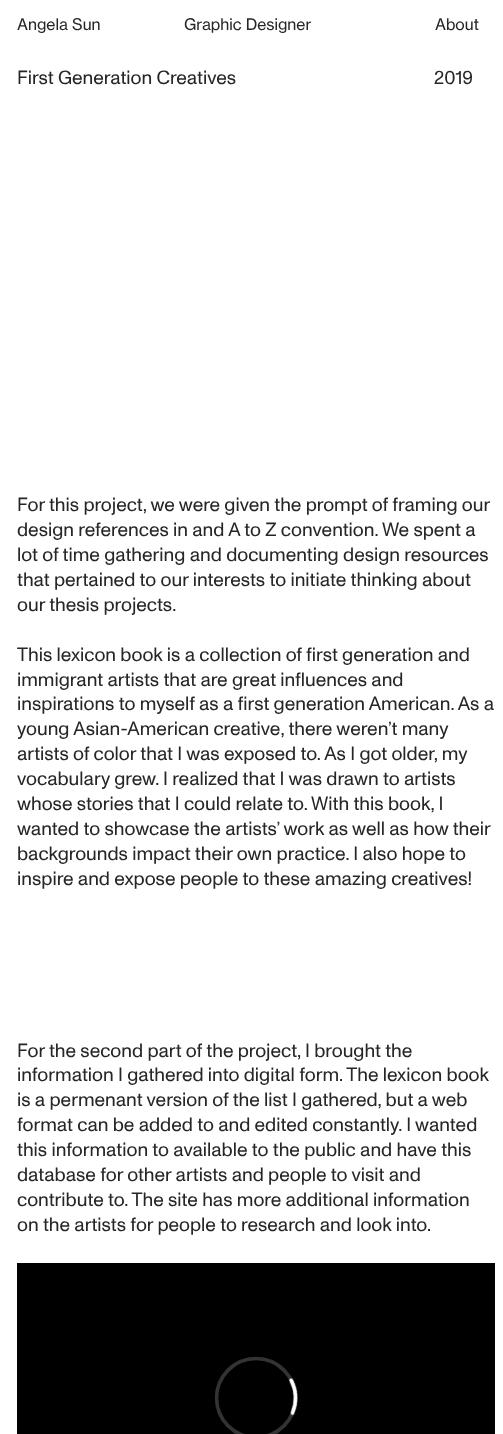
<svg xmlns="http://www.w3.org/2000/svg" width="503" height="1434">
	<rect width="100%" height="100%" fill="#FFFFFF" />
	<g font-family="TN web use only" font-size="15.75" fill="#262626">
		<text x="17" y="30">Angela Sun</text>
		<text x="184" y="30">Graphic Designer</text>
		<text x="435" y="30">About</text>
	</g>
	<g font-family="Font" font-size="19.15" fill="#262626">
		<text x="17" y="84">First Generation Creatives</text>
		<text x="434" y="84">2019</text>
		<text x="17" y="511">For this project, we were given the prompt of framing our</text>
		<text x="17" y="536">design references in and A to Z convention. We spent a</text>
		<text x="17" y="561">lot of time gathering and documenting design resources</text>
		<text x="17" y="586">that pertained to our interests to initiate thinking about</text>
		<text x="17" y="611">our thesis projects.</text>
		<text x="17" y="661">This lexicon book is a collection of first generation and</text>
		<text x="17" y="686">immigrant artists that are great influences and</text>
		<text x="17" y="710">inspirations to myself as a first generation American. As a</text>
		<text x="17" y="735">young Asian-American creative, there weren’t many</text>
		<text x="17" y="760">artists of color that I was exposed to. As I got older, my</text>
		<text x="17" y="785">vocabulary grew. I realized that I was drawn to artists</text>
		<text x="17" y="810">whose stories that I could relate to. With this book, I</text>
		<text x="17" y="835">wanted to showcase the artists’ work as well as how their</text>
		<text x="17" y="860">backgrounds impact their own practice. I also hope to</text>
		<text x="17" y="885">inspire and expose people to these amazing creatives!</text>
		<text x="17" y="1057">For the second part of the project, I brought the</text>
		<text x="17" y="1081">information I gathered into digital form. The lexicon book</text>
		<text x="17" y="1106">is a permenant version of the list I gathered, but a web</text>
		<text x="17" y="1131">format can be added to and edited constantly. I wanted</text>
		<text x="17" y="1156">this information to available to the public and have this</text>
		<text x="17" y="1181">database for other artists and people to visit and</text>
		<text x="17" y="1206">contribute to. The site has more additional information</text>
		<text x="17" y="1231">on the artists for people to research and look into.</text>
	</g>
	<image x="17" y="1263" width="478" height="171" href="assets/img1.png" />
</svg>
